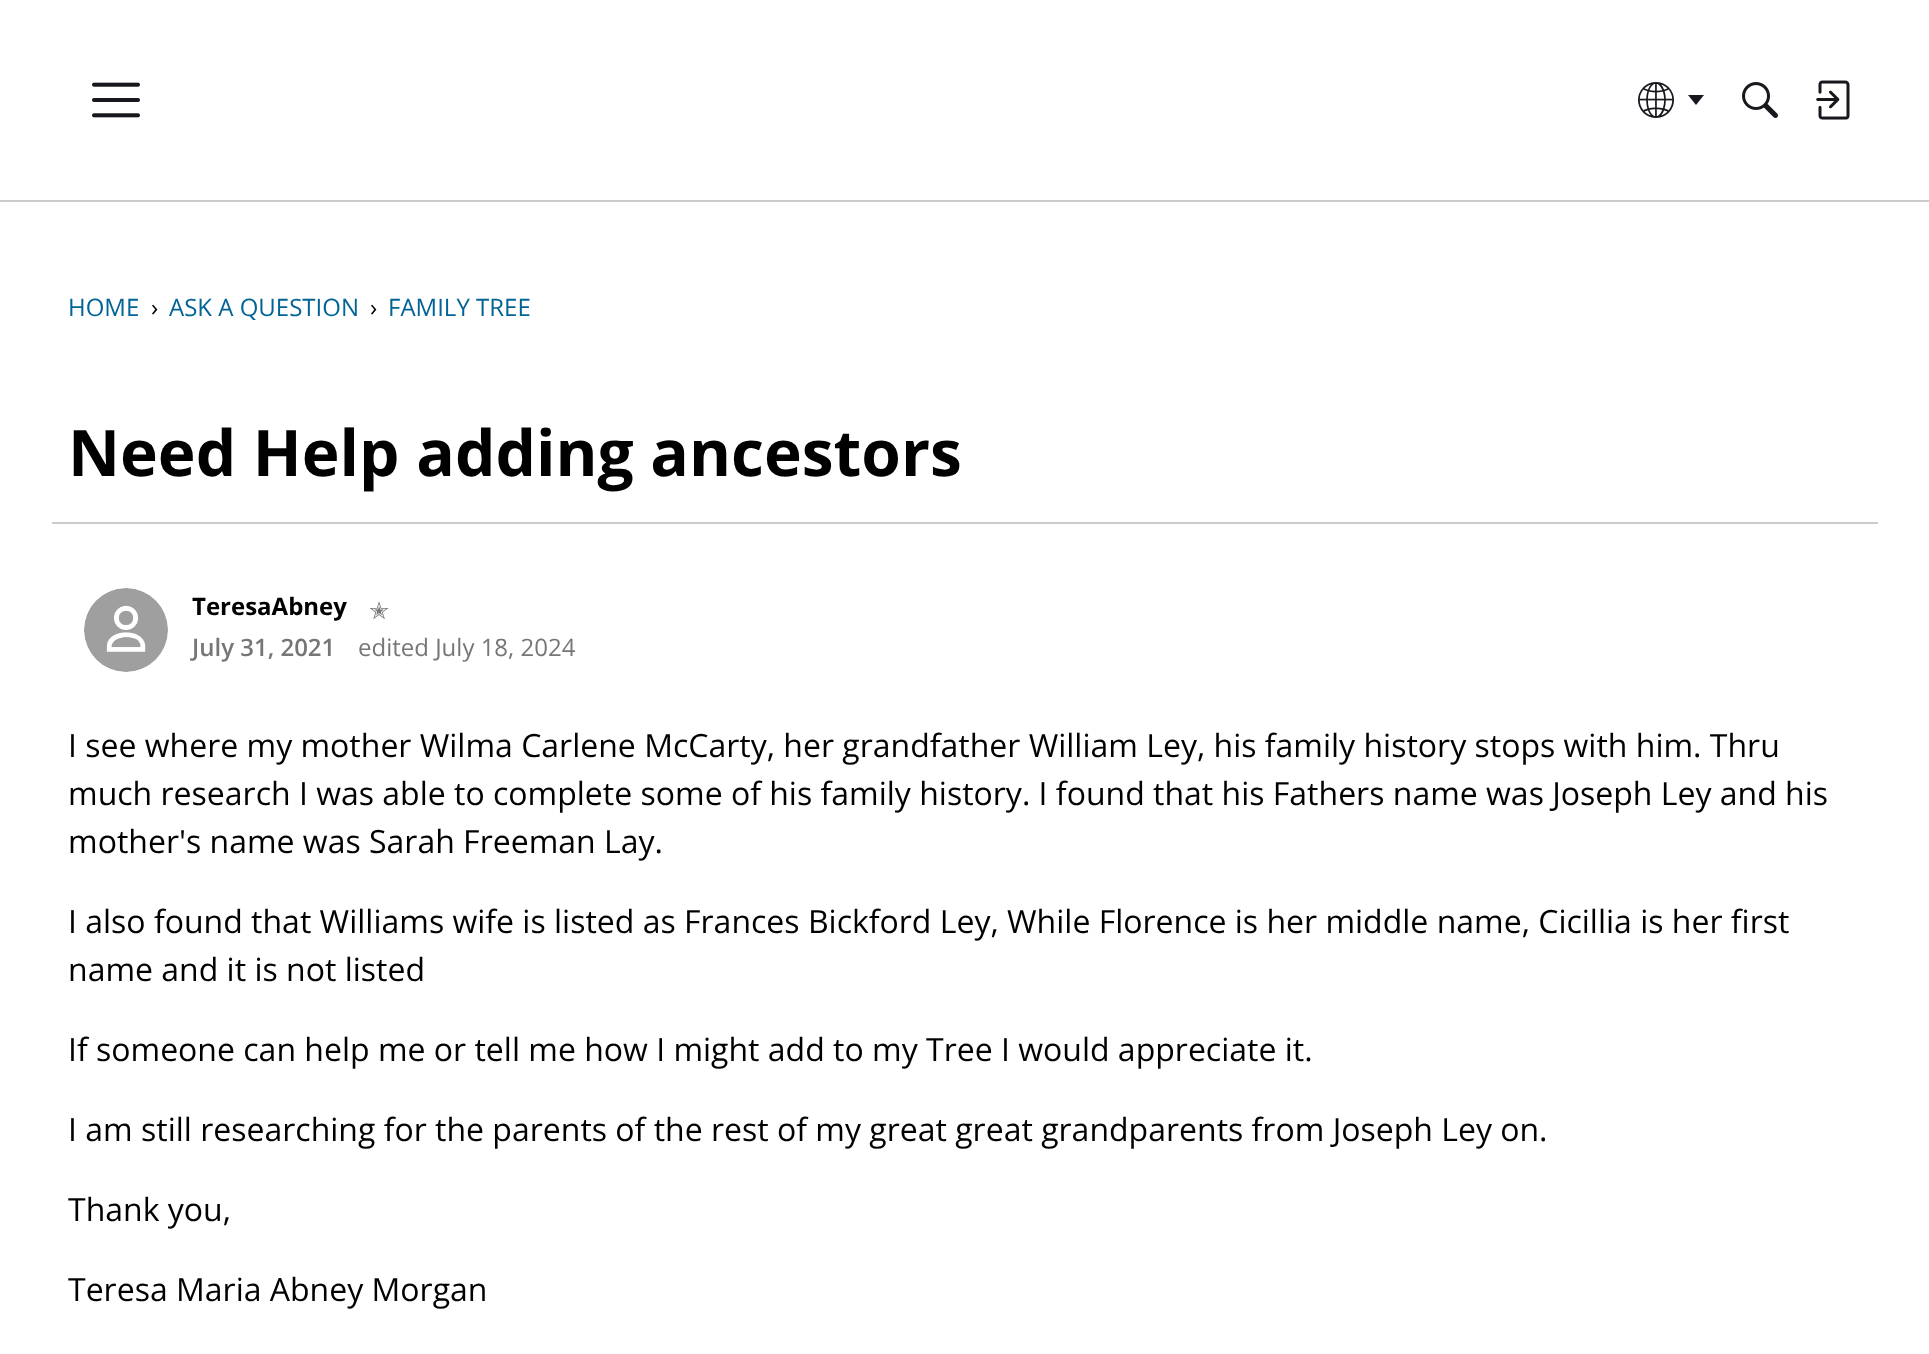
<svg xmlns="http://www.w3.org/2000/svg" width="1929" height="1354">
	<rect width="100%" height="100%" fill="#FFFFFF" />
	<rect x="0" y="200" width="1929" height="2" fill="#CCCCCC" />
	<image x="92" y="82" width="48" height="36" href="assets/img1.png" />
	<image x="1638" y="82" width="36" height="36" href="assets/img2.png" />
	<path d="M1688 95H1704L1696 105Z" fill="#17171E" />
	<image x="1742" y="82" width="36" height="36" href="assets/img3.png" />
	<image x="1816" y="80" width="34" height="40" href="assets/img4.png" />
	<text x="68" y="316" font-family="Open Sans" font-size="24" fill="#026496">HOME</text>
	<text x="151" y="316" font-family="Open Sans" font-size="24" fill="#000000">›</text>
	<text x="169" y="316" font-family="Open Sans" font-size="24" fill="#026496">ASK A QUESTION</text>
	<text x="370" y="316" font-family="Open Sans" font-size="24" fill="#000000">›</text>
	<text x="388" y="316" font-family="Open Sans" font-size="24" fill="#026496">FAMILY TREE</text>
	<text x="68" y="476" font-family="Open Sans" font-size="64" font-weight="700" fill="#000000">Need Help adding ancestors</text>
	<rect x="52" y="522" width="1826" height="2" fill="#CCCCCC" />
	<image x="84" y="588" width="84" height="84" href="assets/img5.png" />
	<text x="192" y="615" font-family="Open Sans" font-size="24" font-weight="700" fill="#000000">TeresaAbney</text>
	<text x="369" y="619" font-family="DejaVu Sans" font-size="24" fill="#767676">✭</text>
	<text x="192" y="656" font-family="Open Sans" font-size="24" font-weight="600" fill="#767676">July 31, 2021</text>
	<text x="358" y="656" font-family="Open Sans" font-size="24" fill="#767676">edited July 18, 2024</text>
	<g font-family="Open Sans" font-size="32" fill="#000000">
		<text x="68" y="757">I see where my mother Wilma Carlene McCarty, her grandfather William Ley, his family history stops with him. Thru</text>
		<text x="68" y="805">much research I was able to complete some of his family history. I found that his Fathers name was Joseph Ley and his</text>
		<text x="68" y="853">mother's name was Sarah Freeman Lay.</text>
		<text x="68" y="933">I also found that Williams wife is listed as Frances Bickford Ley, While Florence is her middle name, Cicillia is her first</text>
		<text x="68" y="981">name and it is not listed</text>
		<text x="68" y="1061">If someone can help me or tell me how I might add to my Tree I would appreciate it.</text>
		<text x="68" y="1141">I am still researching for the parents of the rest of my great great grandparents from Joseph Ley on.</text>
		<text x="68" y="1221">Thank you,</text>
		<text x="68" y="1301">Teresa Maria Abney Morgan</text>
	</g>
</svg>
